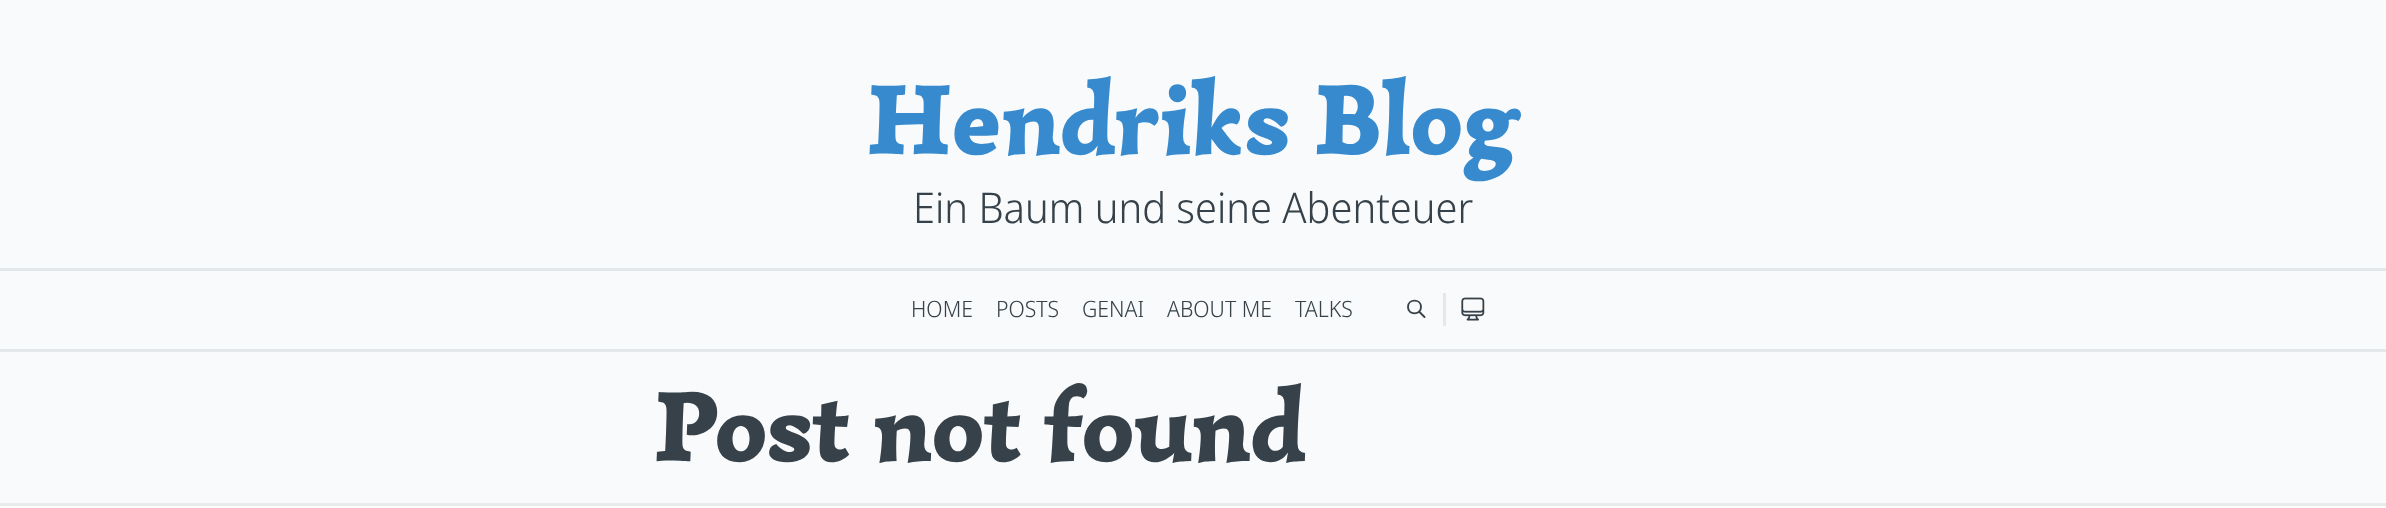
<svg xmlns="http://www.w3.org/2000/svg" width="2386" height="508">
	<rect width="100%" height="100%" fill="#F8FAFB" />
	<text x="866" y="154" font-family="Simonetta" font-size="101.25" font-weight="900" fill="#378ACD">Hendriks Blog</text>
	<text x="913" y="223" font-family="Noto Sans Display" font-size="42.25" font-weight="300" fill="#364149">Ein Baum und seine Abenteuer</text>
	<rect x="0" y="268" width="2386" height="3" fill="#E4E8EA" />
	<g font-family="Noto Sans Display" font-size="22.5" font-weight="300" fill="#364149">
		<text x="911" y="317">HOME</text>
		<text x="996" y="317">POSTS</text>
		<text x="1082" y="317">GENAI</text>
		<text x="1167" y="317">ABOUT ME</text>
		<text x="1295" y="317">TALKS</text>
	</g>
	<path d="M1424.5 317L1419 311.5M1421 307C1421 315.5 1408 315.5 1408 307C1408 298.5 1421 298.5 1421 307Z" fill="none" stroke="#364149" stroke-width="1.9" stroke-linecap="round" stroke-linejoin="round" />
	<rect x="1443" y="293" width="3" height="33" fill="#E4E8EA" />
	<image x="1461" y="297" width="24" height="24" href="assets/img1.png" />
	<rect x="0" y="349" width="2386" height="3" fill="#E4E8EA" />
	<text x="653" y="461" font-family="Simonetta" font-size="101.25" font-weight="900" fill="#364149">Post not found</text>
	<rect x="0" y="506" width="2386" height="2" fill="#FEFEFE" />
	<rect x="0" y="503" width="2386" height="3" fill="#E8EBEC" />
</svg>
